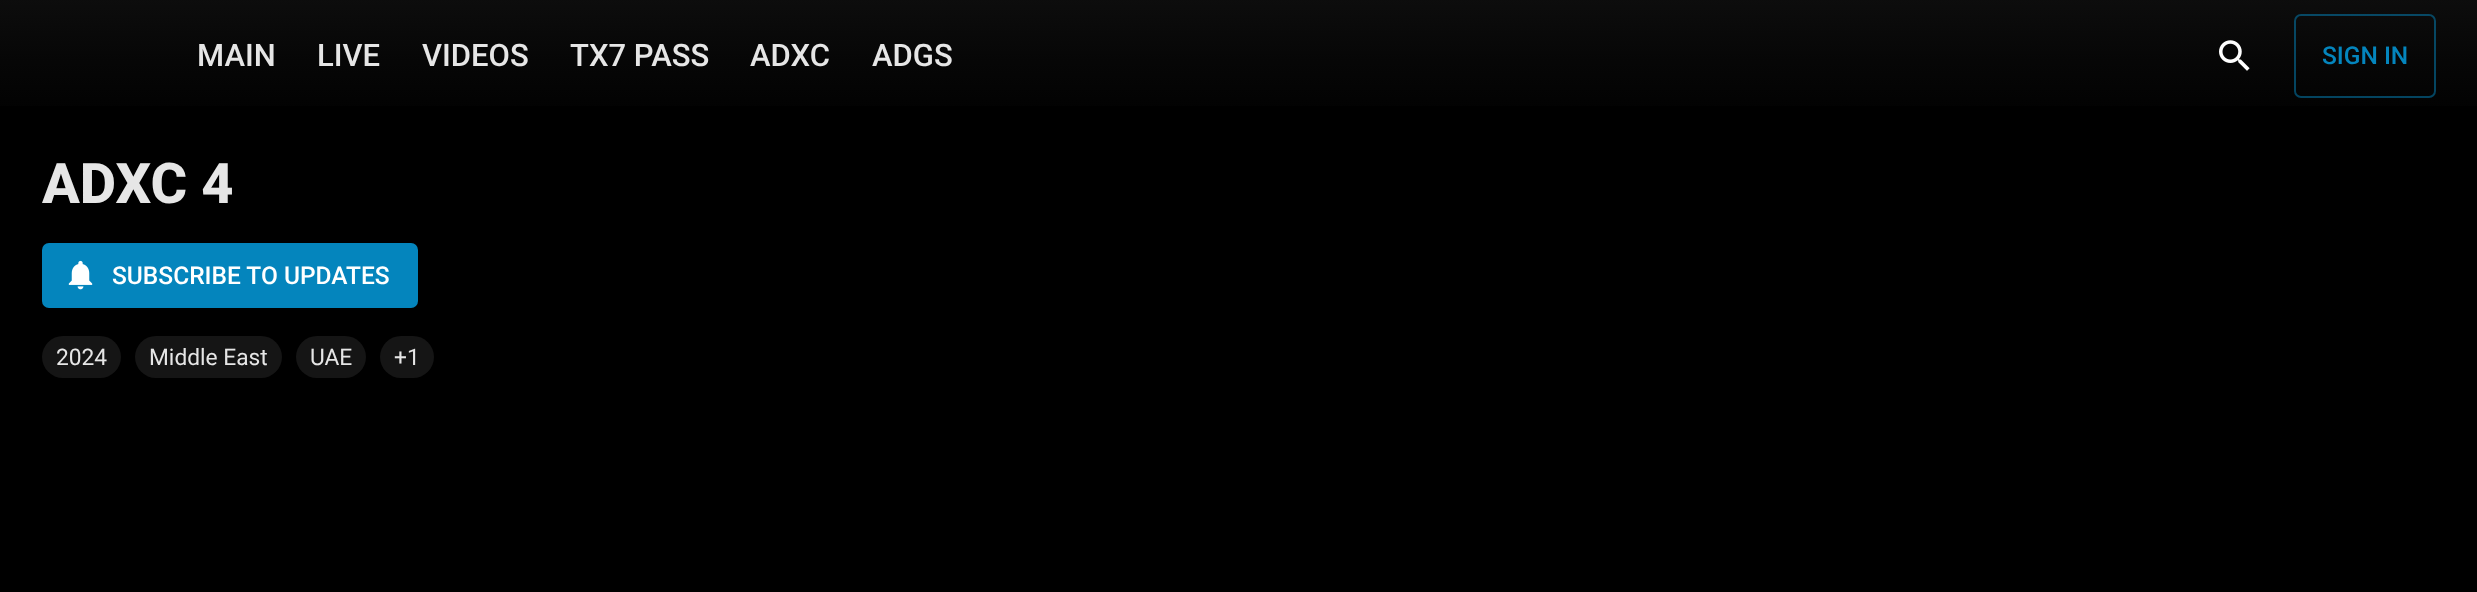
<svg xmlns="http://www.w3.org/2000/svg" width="2477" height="592">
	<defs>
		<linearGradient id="g1" gradientUnits="userSpaceOnUse" x1="1239" y1="0" x2="1239" y2="175"><stop offset="0" stop-color="#101010" stop-opacity="0.8" /><stop offset="0.33" stop-color="#101010" stop-opacity="0.4" /><stop offset="0.67" stop-color="#101010" stop-opacity="0.1" /><stop offset="1" stop-color="#101010" stop-opacity="0" /></linearGradient>
	</defs>
	<rect width="100%" height="100%" fill="#000000" />
	<rect x="0" y="0" width="2477" height="106" fill="url(#g1)" />
	<g font-family="Roboto" font-size="31" font-weight="500" fill="#E6E6E6">
		<text x="197" y="66">MAIN</text>
		<text x="317" y="66">LIVE</text>
		<text x="422" y="66">VIDEOS</text>
		<text x="570" y="66">TX7 PASS</text>
		<text x="750" y="66">ADXC</text>
		<text x="872" y="66">ADGS</text>
	</g>
	<image x="2219" y="40" width="31" height="31" href="assets/img1.png" />
	<rect x="2295" y="15" width="140" height="82" rx="6" fill="none" stroke="#0485BD" stroke-opacity="0.5" stroke-width="2" />
	<text x="2322" y="64" font-family="Roboto" font-size="24.5" font-weight="500" fill="#0485BD">SIGN IN</text>
	<text x="42" y="203" font-family="Roboto" font-size="56" font-weight="800" fill="#E6E6E6">ADXC 4</text>
	<rect x="42" y="243" width="376" height="65" rx="7" fill="#0485BD" />
	<image x="68" y="260" width="25" height="30" href="assets/img2.png" />
	<text x="112" y="284" font-family="Roboto" font-size="24.5" font-weight="500" fill="#FFFFFF">SUBSCRIBE TO UPDATES</text>
	<rect x="42" y="336" width="79" height="42" rx="21" fill="#151515" />
	<text x="56" y="365" font-family="Roboto" font-size="22.75" fill="#E6E6E6">2024</text>
	<rect x="135" y="336" width="147" height="42" rx="21" fill="#151515" />
	<text x="149" y="365" font-family="Roboto" font-size="22.75" fill="#E6E6E6">Middle East</text>
	<rect x="296" y="336" width="70" height="42" rx="21" fill="#151515" />
	<text x="310" y="365" font-family="Roboto" font-size="22.75" fill="#E6E6E6">UAE</text>
	<rect x="380" y="336" width="54" height="42" rx="21" fill="#151515" />
	<text x="394" y="365" font-family="Roboto" font-size="22.75" fill="#E6E6E6">+1</text>
</svg>
